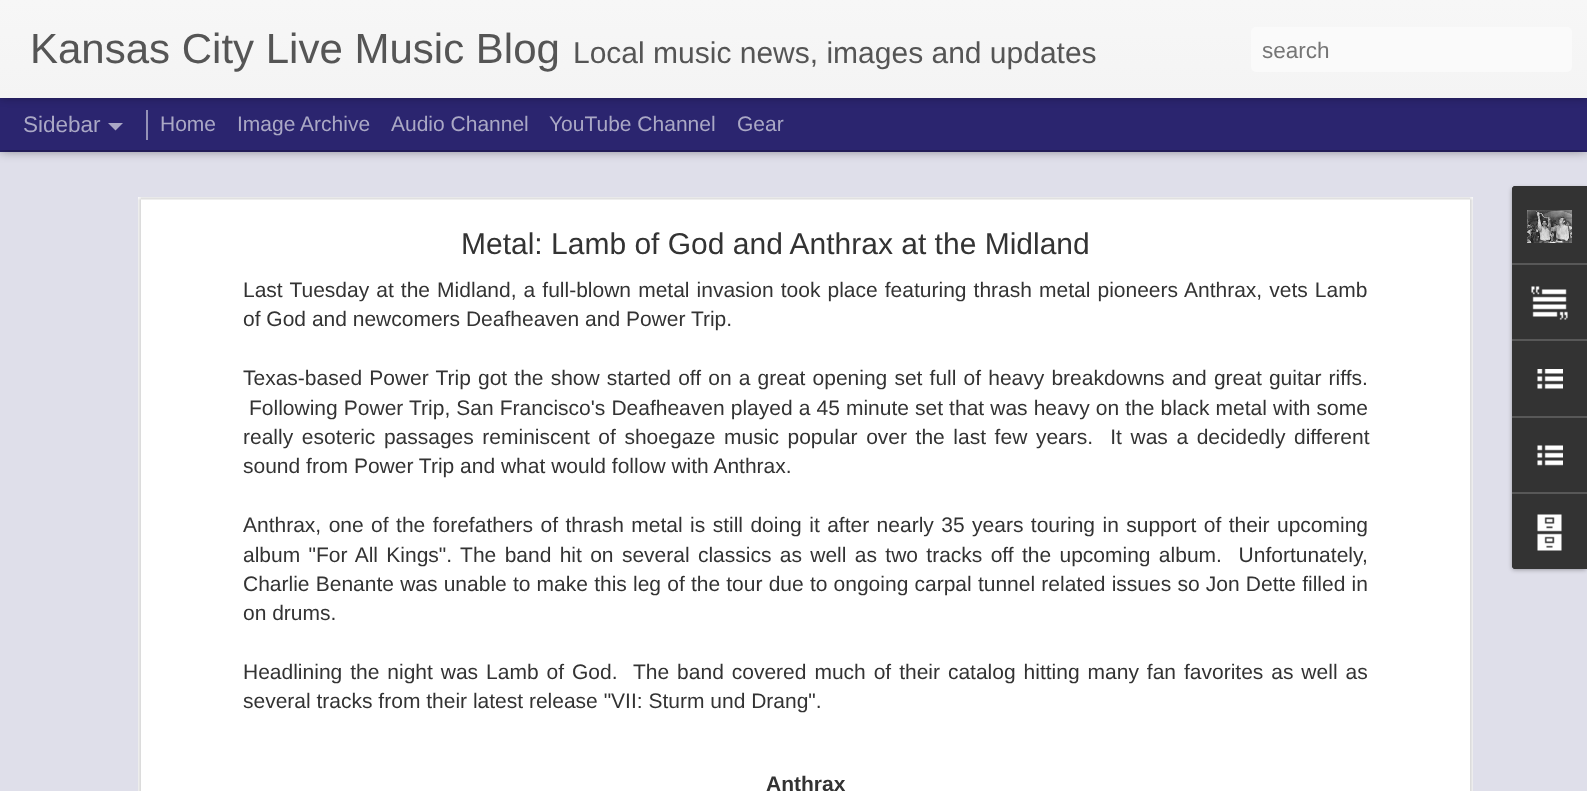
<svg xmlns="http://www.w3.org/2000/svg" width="1587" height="791">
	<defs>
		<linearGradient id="g1" gradientUnits="userSpaceOnUse" x1="0" y1="0" x2="0" y2="98"><stop offset="0" stop-color="#F7F7F7" /><stop offset="1" stop-color="#F4F4F4" /></linearGradient>
	</defs>
	<rect width="100%" height="100%" fill="#2B256F" />
	<rect x="0" y="152" width="1587" height="639" fill="#DFDFEA" />
	<rect x="0" y="98" width="1587" height="52" fill="#000000" fill-opacity="0.5" filter="blur(6px)" />
	<rect x="0" y="98" width="1587" height="52" fill="#2B256F" />
	<rect x="146" y="110" width="2" height="30" fill="#9592B7" />
	<rect x="0" y="0" width="1587" height="98" fill="#000000" fill-opacity="0.3" filter="blur(4px)" />
	<rect x="0" y="0" width="1587" height="98" fill="url(#g1)" />
	<text x="30" y="63" font-family="Liberation Sans" font-size="42" fill="#555555">Kansas City Live Music Blog</text>
	<text x="573" y="63" font-family="Liberation Sans" font-size="30" fill="#555555">Local music news, images and updates</text>
	<rect x="1251" y="27" width="321" height="45" rx="5" fill="#FAFAFA" />
	<text x="1262" y="58" font-family="Liberation Sans" font-size="22.5" fill="#757575">search</text>
	<text x="23" y="132" font-family="Liberation Sans" font-size="22.5" fill="#AAA8C5">Sidebar</text>
	<path d="M108 123H123L115.5 130.5Z" fill="#AAA8C5" />
	<g font-family="Liberation Sans" font-size="21" fill="#AAA8C5">
		<text x="160" y="131">Home</text>
		<text x="237" y="131">Image Archive</text>
		<text x="391" y="131">Audio Channel</text>
		<text x="549" y="131">YouTube Channel</text>
		<text x="737" y="131">Gear</text>
	</g>
	<rect x="138" y="197" width="1335" height="594" fill="#FFFFFF" />
	<image x="138" y="197" width="1335" height="594" href="assets/img1.png" />
	<text x="461" y="254" font-family="Liberation Sans" font-size="30" fill="#333333">Metal: Lamb of God and Anthrax at the Midland</text>
	<g font-family="Liberation Sans" font-size="21" fill="#333333">
		<text x="243" y="297" word-spacing="1.25">Last Tuesday at the Midland, a full-blown metal invasion took place featuring thrash metal pioneers Anthrax, vets Lamb</text>
		<text x="243" y="326">of God and newcomers Deafheaven and Power Trip.</text>
		<text x="243" y="385" word-spacing="1.3">Texas-based Power Trip got the show started off on a great opening set full of heavy breakdowns and great guitar riffs.</text>
		<text x="249" y="415" word-spacing="0.25">Following Power Trip, San Francisco's Deafheaven played a 45 minute set that was heavy on the black metal with some</text>
		<text x="243" y="444" word-spacing="2.75" xml:space="preserve">really esoteric passages reminiscent of shoegaze music popular over the last few years.  It was a decidedly different</text>
		<text x="243" y="473">sound from Power Trip and what would follow with Anthrax.</text>
		<text x="243" y="532" word-spacing="1.6">Anthrax, one of the forefathers of thrash metal is still doing it after nearly 35 years touring in support of their upcoming</text>
		<text x="243" y="562" word-spacing="2.5" xml:space="preserve">album "For All Kings". The band hit on several classics as well as two tracks off the upcoming album.  Unfortunately,</text>
		<text x="243" y="591" word-spacing="0.35">Charlie Benante was unable to make this leg of the tour due to ongoing carpal tunnel related issues so Jon Dette filled in</text>
		<text x="243" y="620">on drums.</text>
		<text x="243" y="679" word-spacing="2.1" xml:space="preserve">Headlining the night was Lamb of God.  The band covered much of their catalog hitting many fan favorites as well as</text>
		<text x="243" y="708">several tracks from their latest release "VII: Sturm und Drang".</text>
	</g>
	<text x="766" y="791" font-family="Liberation Sans" font-size="21" font-weight="700" fill="#333333">Anthrax</text>
	<rect x="1512" y="188" width="75" height="382" rx="3" fill="#000000" fill-opacity="0.3" filter="blur(2px)" />
	<path d="M1515 186H1587V569H1515C1513.5 569 1512 567.5 1512 566V189C1512 187.5 1513.5 186 1515 186Z" fill="#333333" />
	<path d="M1515 186H1587V263H1512V189C1512 187.5 1513.5 186 1515 186Z" fill="#333333" />
	<image x="1527" y="210" width="45" height="33" href="assets/img2.png" />
	<rect x="1512" y="263" width="75" height="2" fill="#585858" />
	<image x="1531" y="286" width="37" height="34" href="assets/img3.png" />
	<rect x="1512" y="339" width="75" height="2" fill="#585858" />
	<image x="1537" y="369" width="26" height="20" href="assets/img4.png" />
	<rect x="1512" y="416" width="75" height="2" fill="#585858" />
	<image x="1537" y="445" width="26" height="21" href="assets/img5.png" />
	<path d="M1512 492H1587V569H1515C1513.5 569 1512 567.5 1512 566Z" fill="#333333" />
	<rect x="1512" y="492" width="75" height="2" fill="#585858" />
	<image x="1537" y="514" width="25" height="37" href="assets/img6.png" />
</svg>
